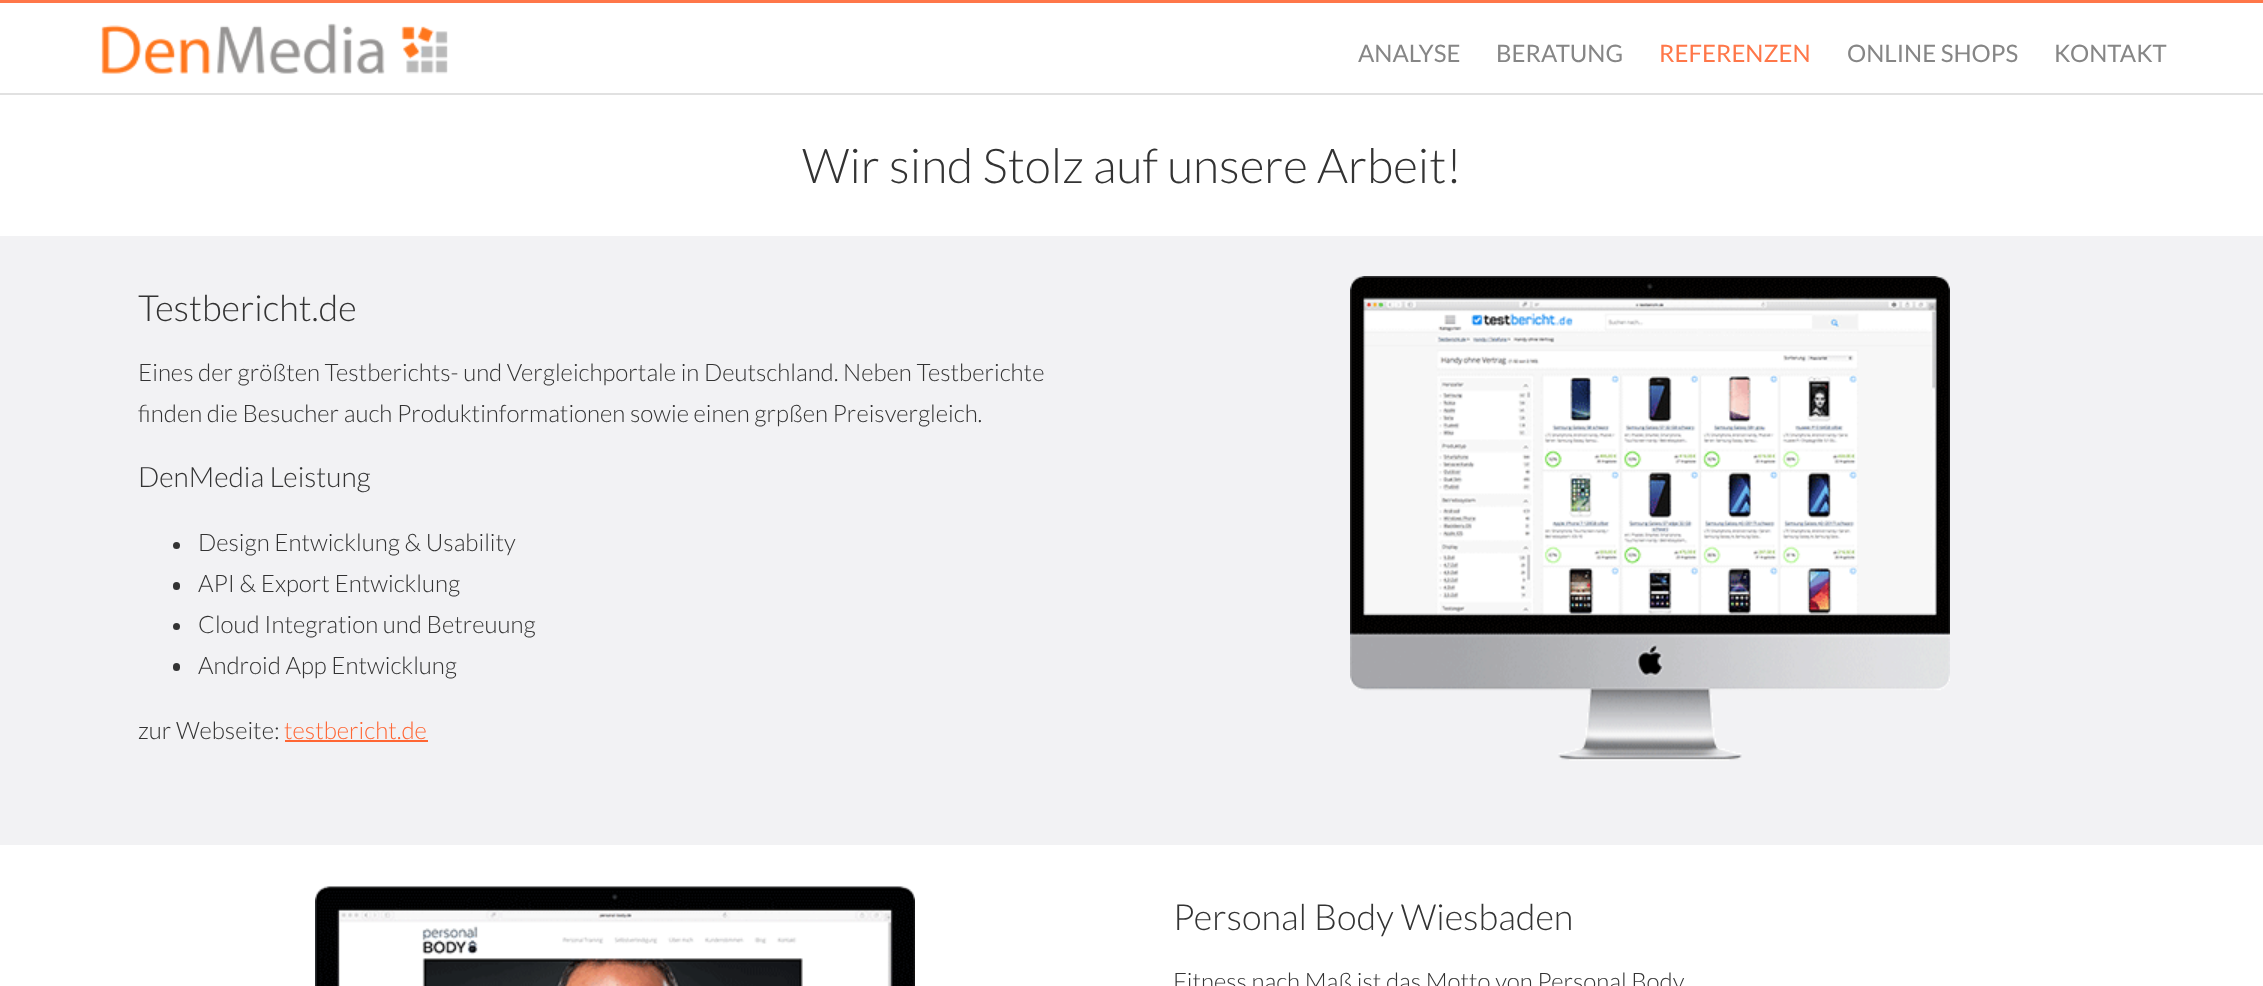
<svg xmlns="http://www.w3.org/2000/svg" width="2263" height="986">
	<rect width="100%" height="100%" fill="#FFFFFF" />
	<rect x="0" y="0" width="2263" height="3" fill="#FF7749" />
	<rect x="0" y="93" width="2263" height="2" fill="#E1E1E1" />
	<image x="101" y="23" width="347" height="51" href="assets/img1.png" />
	<g font-family="Lato" font-size="24" fill="#868686">
		<text x="1358" y="62">ANALYSE</text>
		<text x="1496" y="62">BERATUNG</text>
	</g>
	<text x="1659" y="62" font-family="Lato" font-size="24" fill="#FF7749">REFERENZEN</text>
	<g font-family="Lato" font-size="24" fill="#868686">
		<text x="1847" y="62">ONLINE SHOPS</text>
		<text x="2054" y="62">KONTAKT</text>
	</g>
	<text x="802" y="183" font-family="Lato" font-size="48" font-weight="300" fill="#333333">Wir sind Stolz auf unsere Arbeit!</text>
	<rect x="0" y="236" width="2263" height="609" fill="#F2F2F4" />
	<text x="138" y="321" font-family="Lato" font-size="36" font-weight="300" fill="#333333">Testbericht.de</text>
	<g font-family="Lato" font-size="24" font-weight="300" fill="#333333">
		<text x="138" y="381">Eines der größten Testberichts- und Vergleichportale in Deutschland. Neben Testberichte</text>
		<text x="138" y="422">finden die Besucher auch Produktinformationen sowie einen grpßen Preisvergleich.</text>
	</g>
	<text x="138" y="487" font-family="Lato" font-size="28" font-weight="300" fill="#333333">DenMedia Leistung</text>
	<circle cx="176.5" cy="545.5" r="3.5" fill="#333333" />
	<text x="198" y="551" font-family="Lato" font-size="24" font-weight="300" fill="#333333">Design Entwicklung &amp; Usability</text>
	<rect x="173" y="582" width="7" height="8" rx="3.5" fill="#333333" />
	<text x="198" y="592" font-family="Lato" font-size="24" font-weight="300" fill="#333333">API &amp; Export Entwicklung</text>
	<circle cx="176.5" cy="626.5" r="3.5" fill="#333333" />
	<text x="198" y="633" font-family="Lato" font-size="24" font-weight="300" fill="#333333">Cloud Integration und Betreuung</text>
	<rect x="173" y="663" width="7" height="8" rx="3.5" fill="#333333" />
	<g font-family="Lato" font-size="24" font-weight="300" fill="#333333">
		<text x="198" y="674">Android App Entwicklung</text>
		<text x="138" y="739">zur Webseite:</text>
	</g>
	<text x="284" y="739" font-family="Lato" font-size="24" font-weight="300" fill="#FF6633">testbericht.de</text>
	<rect x="285" y="740" width="143" height="2" fill="#FF6633" />
	<image x="1350" y="276" width="600" height="485" href="assets/img2.png" />
	<image x="315" y="886" width="600" height="100" href="assets/img3.png" />
	<text x="1173" y="930" font-family="Lato" font-size="36" font-weight="300" fill="#333333">Personal Body Wiesbaden</text>
	<text x="1173" y="990" font-family="Lato" font-size="24" font-weight="300" fill="#333333">Fitness nach Maß ist das Motto von Personal Body.</text>
</svg>
